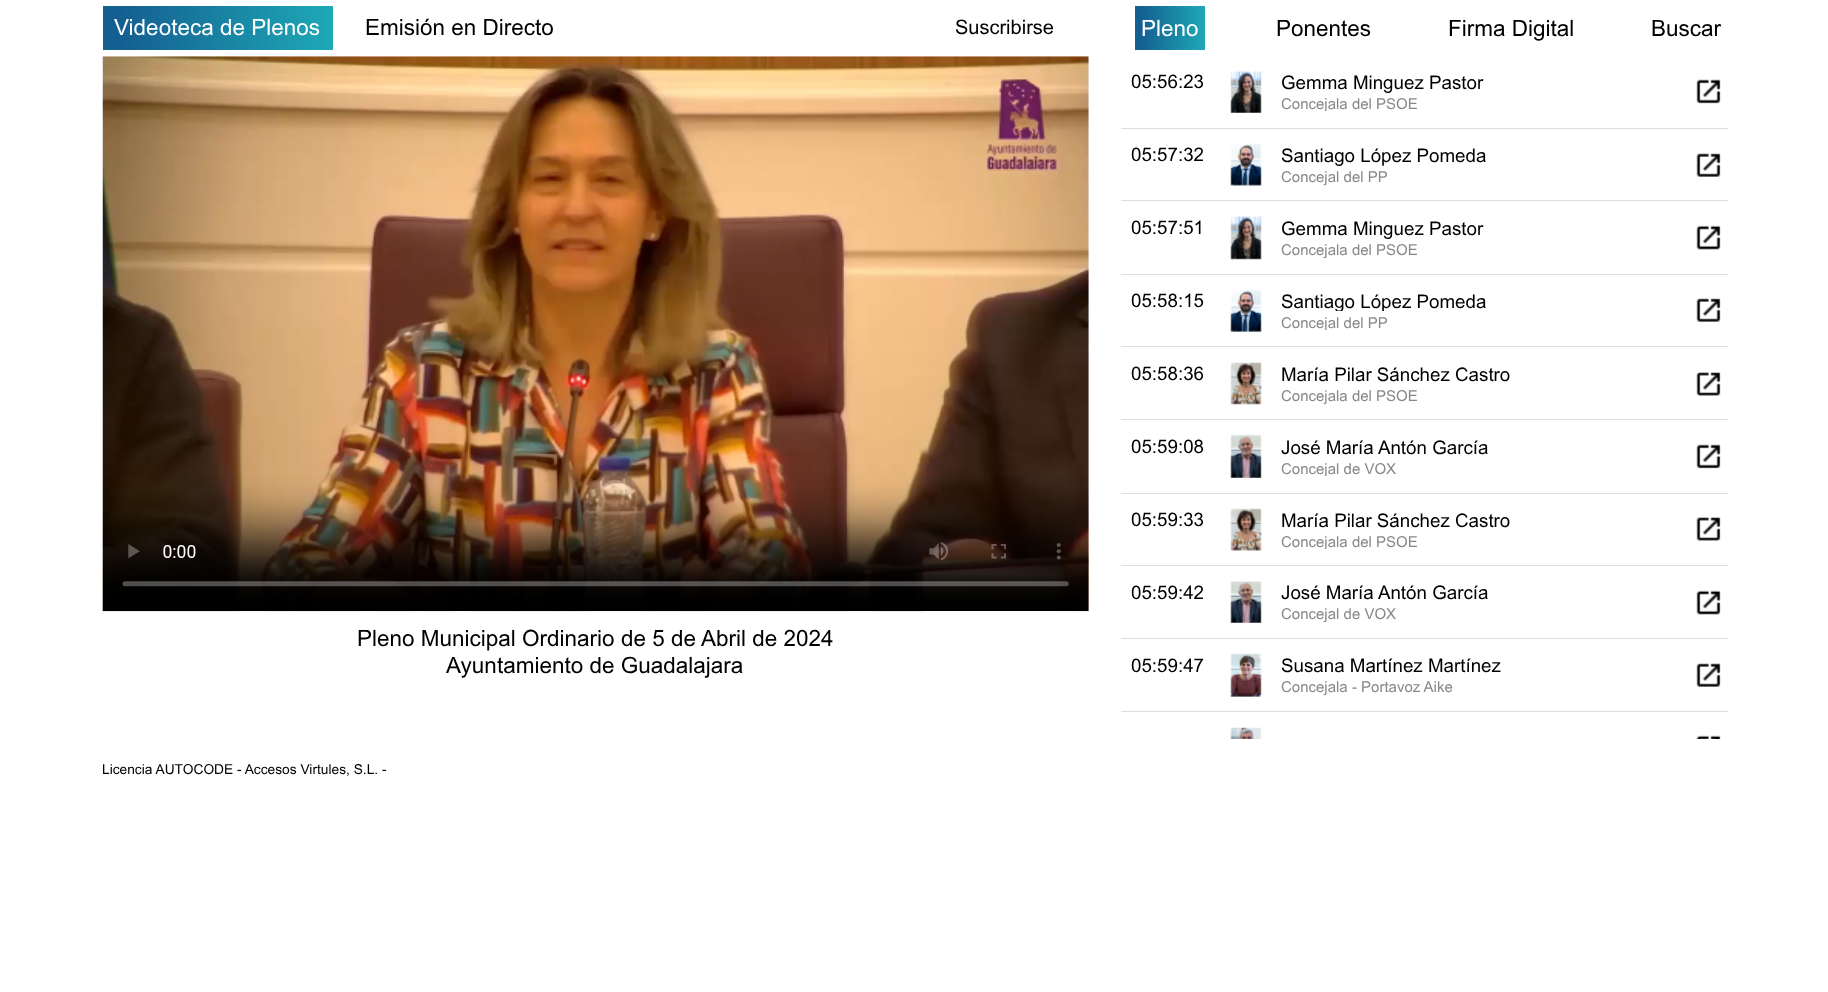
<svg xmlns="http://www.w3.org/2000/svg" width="1828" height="992">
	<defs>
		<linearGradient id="g1" gradientUnits="userSpaceOnUse" x1="103" y1="28" x2="333" y2="28"><stop offset="0" stop-color="#145F91" /><stop offset="0.08" stop-color="#145F91" /><stop offset="1" stop-color="#1EA9B6" /></linearGradient>
		<linearGradient id="g2" gradientUnits="userSpaceOnUse" x1="1135" y1="29" x2="1205" y2="29"><stop offset="0" stop-color="#145F91" /><stop offset="0.08" stop-color="#145F91" /><stop offset="1" stop-color="#1EA9B6" /></linearGradient>
		<clipPath id="clip1"><rect x="1281" y="93" width="399" height="18" /></clipPath>
		<clipPath id="clip2"><rect x="1281" y="290" width="399" height="21" /></clipPath>
		<clipPath id="clip3"><rect x="1281" y="311" width="399" height="19" /></clipPath>
		<clipPath id="clip4"><rect x="1281" y="458" width="399" height="18" /></clipPath>
		<clipPath id="clip5"><rect x="1281" y="530" width="399" height="19" /></clipPath>
	</defs>
	<rect width="100%" height="100%" fill="#FFFFFF" />
	<rect x="103" y="6" width="230" height="44" fill="url(#g1)" />
	<text x="114" y="35" font-family="Arial" font-size="22.5" fill="#FFFFFF">Videoteca de Plenos</text>
	<text x="365" y="35" font-family="Arial" font-size="22.5" fill="#000000">Emisión en Directo</text>
	<text x="955" y="34" font-family="Arial" font-size="20" fill="#000000">Suscribirse</text>
	<rect x="1135" y="6" width="70" height="44" fill="url(#g2)" />
	<text x="1141" y="36" font-family="Arial" font-size="22.5" fill="#FFFFFF">Pleno</text>
	<g font-family="Arial" font-size="22.5" fill="#000000">
		<text x="1276" y="36">Ponentes</text>
		<text x="1448" y="36">Firma Digital</text>
		<text x="1651" y="36">Buscar</text>
	</g>
	<image x="102" y="56" width="987" height="556" href="assets/img1.png" />
	<g font-family="Arial" font-size="22.5" fill="#000000">
		<text x="357" y="646">Pleno Municipal Ordinario de 5 de Abril de 2024</text>
		<text x="446" y="673">Ayuntamiento de Guadalajara</text>
	</g>
	<rect x="1121" y="128" width="607" height="1" fill="#DDDDDD" />
	<text x="1131" y="88" font-family="Arial" font-size="18.75" fill="#000000">05:56:23</text>
	<image x="1230" y="70" width="32" height="43" href="assets/img2.png" />
	<text x="1281" y="89" font-family="Arial" font-size="18.75" fill="#000000">Gemma Minguez Pastor</text>
	<g clip-path="url(#clip1)">
		<text x="1281" y="109" font-family="Arial" font-size="15" fill="#888888">Concejala del PSOE</text>
	</g>
	<image x="1696" y="79" width="25" height="25" href="assets/img3.png" />
	<rect x="1121" y="200" width="607" height="1" fill="#DDDDDD" />
	<text x="1131" y="161" font-family="Arial" font-size="18.75" fill="#000000">05:57:32</text>
	<image x="1230" y="143" width="32" height="43" href="assets/img4.png" />
	<text x="1281" y="162" font-family="Arial" font-size="18.75" fill="#000000">Santiago López Pomeda</text>
	<text x="1281" y="182" font-family="Arial" font-size="15" fill="#888888">Concejal del PP</text>
	<image x="1696" y="153" width="25" height="24" href="assets/img5.png" />
	<rect x="1121" y="274" width="607" height="1" fill="#DDDDDD" />
	<text x="1131" y="234" font-family="Arial" font-size="18.75" fill="#000000">05:57:51</text>
	<image x="1230" y="215" width="32" height="45" href="assets/img6.png" />
	<text x="1281" y="235" font-family="Arial" font-size="18.75" fill="#000000">Gemma Minguez Pastor</text>
	<text x="1281" y="255" font-family="Arial" font-size="15" fill="#888888">Concejala del PSOE</text>
	<image x="1696" y="225" width="25" height="25" href="assets/img7.png" />
	<rect x="1121" y="346" width="607" height="1" fill="#DDDDDD" />
	<text x="1131" y="307" font-family="Arial" font-size="18.75" fill="#000000">05:58:15</text>
	<image x="1230" y="289" width="32" height="43" href="assets/img8.png" />
	<g clip-path="url(#clip2)">
		<text x="1281" y="308" font-family="Arial" font-size="18.75" fill="#000000">Santiago López Pomeda</text>
	</g>
	<g clip-path="url(#clip3)">
		<text x="1281" y="328" font-family="Arial" font-size="15" fill="#888888">Concejal del PP</text>
	</g>
	<image x="1696" y="298" width="25" height="24" href="assets/img5.png" />
	<rect x="1121" y="419" width="607" height="1" fill="#DDDDDD" />
	<text x="1131" y="380" font-family="Arial" font-size="18.75" fill="#000000">05:58:36</text>
	<image x="1230" y="362" width="32" height="43" href="assets/img9.png" />
	<text x="1281" y="381" font-family="Arial" font-size="18.75" fill="#000000">María Pilar Sánchez Castro</text>
	<text x="1281" y="401" font-family="Arial" font-size="15" fill="#888888">Concejala del PSOE</text>
	<image x="1696" y="372" width="25" height="24" href="assets/img10.png" />
	<rect x="1121" y="493" width="607" height="1" fill="#DDDDDD" />
	<text x="1131" y="453" font-family="Arial" font-size="18.75" fill="#000000">05:59:08</text>
	<image x="1230" y="434" width="32" height="44" href="assets/img11.png" />
	<text x="1281" y="454" font-family="Arial" font-size="18.75" fill="#000000">José María Antón García</text>
	<g clip-path="url(#clip4)">
		<text x="1281" y="474" font-family="Arial" font-size="15" fill="#888888">Concejal de VOX</text>
	</g>
	<image x="1696" y="444" width="25" height="25" href="assets/img3.png" />
	<rect x="1121" y="565" width="607" height="1" fill="#DDDDDD" />
	<text x="1131" y="526" font-family="Arial" font-size="18.75" fill="#000000">05:59:33</text>
	<image x="1230" y="508" width="32" height="43" href="assets/img12.png" />
	<text x="1281" y="527" font-family="Arial" font-size="18.75" fill="#000000">María Pilar Sánchez Castro</text>
	<g clip-path="url(#clip5)">
		<text x="1281" y="547" font-family="Arial" font-size="15" fill="#888888">Concejala del PSOE</text>
	</g>
	<image x="1696" y="517" width="25" height="24" href="assets/img10.png" />
	<rect x="1121" y="638" width="607" height="1" fill="#DDDDDD" />
	<text x="1131" y="599" font-family="Arial" font-size="18.75" fill="#000000">05:59:42</text>
	<image x="1230" y="581" width="32" height="42" href="assets/img13.png" />
	<text x="1281" y="599" font-family="Arial" font-size="18.75" fill="#000000">José María Antón García</text>
	<text x="1281" y="619" font-family="Arial" font-size="15" fill="#888888">Concejal de VOX</text>
	<image x="1696" y="590" width="25" height="25" href="assets/img7.png" />
	<rect x="1121" y="711" width="607" height="1" fill="#DDDDDD" />
	<text x="1131" y="672" font-family="Arial" font-size="18.75" fill="#000000">05:59:47</text>
	<image x="1230" y="653" width="32" height="44" href="assets/img14.png" />
	<text x="1281" y="672" font-family="Arial" font-size="18.75" fill="#000000">Susana Martínez Martínez</text>
	<text x="1281" y="692" font-family="Arial" font-size="15" fill="#888888">Concejala - Portavoz Aike</text>
	<image x="1696" y="663" width="25" height="24" href="assets/img5.png" />
	<image x="1230" y="727" width="32" height="12" href="assets/img15.png" />
	<image x="1696" y="735" width="25" height="4" href="assets/img16.png" />
	<text x="102" y="774" font-family="Arial" font-size="13.75" fill="#000000">Licencia AUTOCODE - Accesos Virtules, S.L. -</text>
</svg>
